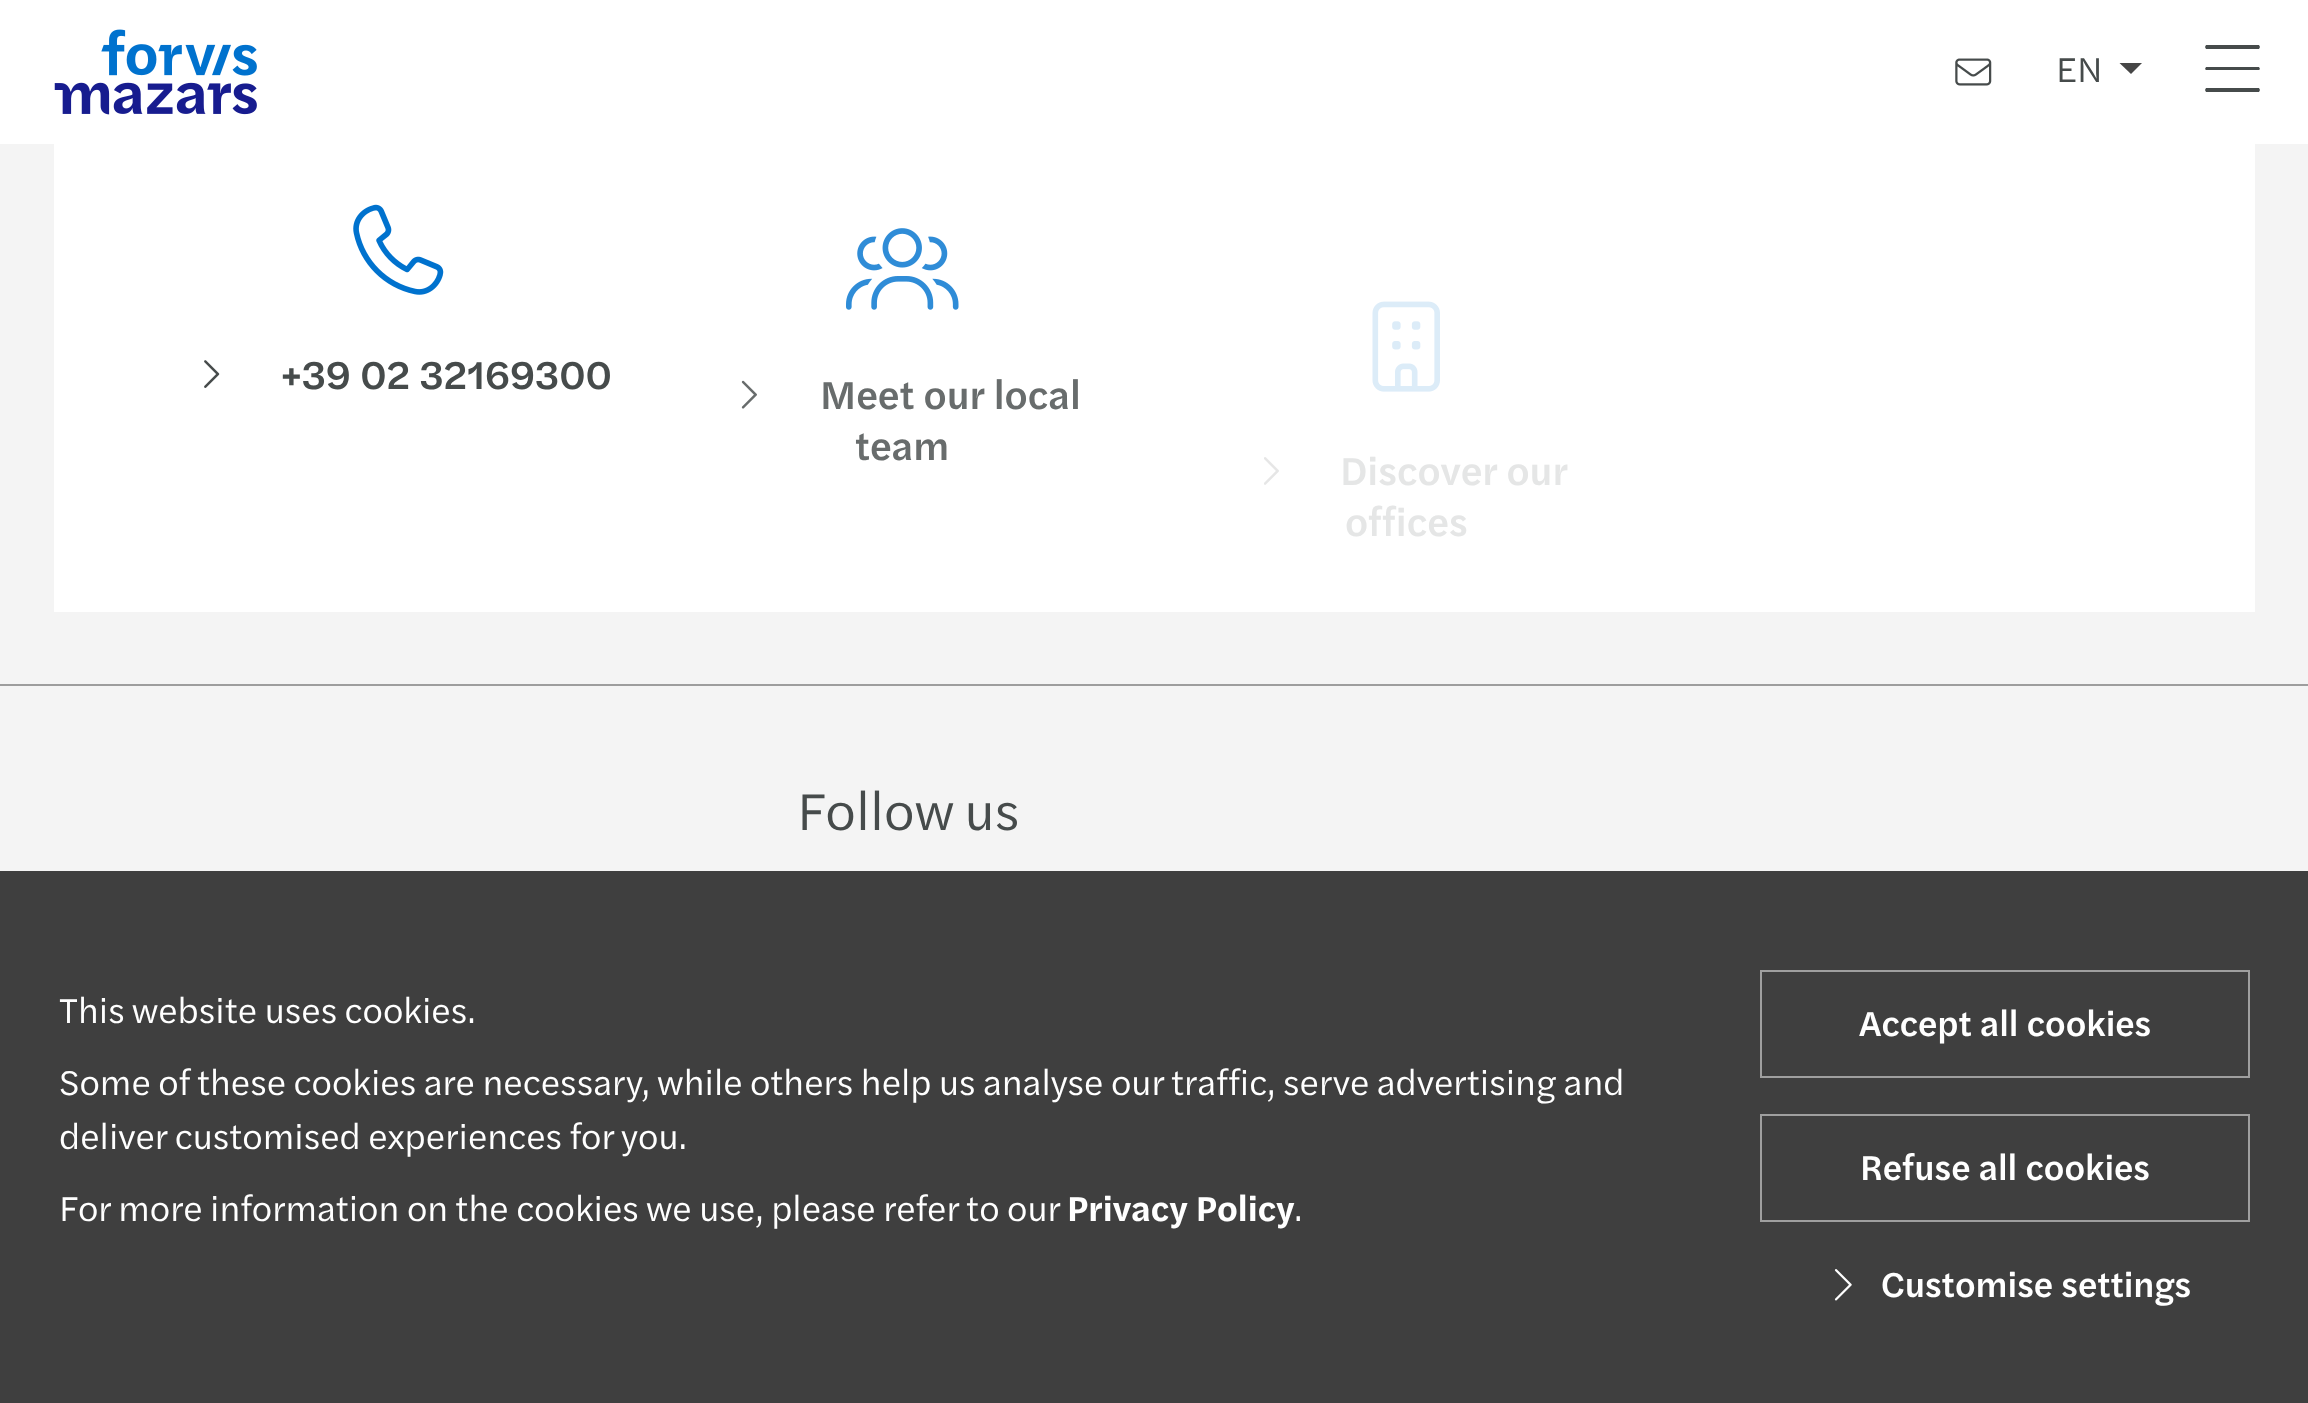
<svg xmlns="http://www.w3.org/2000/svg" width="2308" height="1403">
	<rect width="100%" height="100%" fill="#F4F4F4" />
	<rect x="0" y="0" width="2308" height="144" fill="#FFFFFF" />
	<image x="54" y="29" width="203" height="86" href="assets/img1.png" />
	<image x="1955" y="58" width="37" height="28" href="assets/img2.png" />
	<text x="2056" y="82" font-family="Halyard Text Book" font-size="36" fill="#464B4B">EN</text>
	<path d="M2131 74L2142 63H2119.5Z" fill="#464646" />
	<path d="M2205 47L2206 45H2259L2260 47L2259 49H2206ZM2205 69L2206 67H2259L2260 69L2259 70H2206ZM2260 90L2259 92H2206L2205 90L2206 88H2259Z" fill="#464B4B" />
	<rect x="54" y="144" width="2201" height="468" fill="#FFFFFF" />
	<image x="353" y="204" width="91" height="91" href="assets/img3.png" />
	<image x="204" y="360" width="16" height="28" href="assets/img4.png" />
	<text x="281" y="389" font-family="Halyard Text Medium" font-size="40.5" font-weight="500" fill="#464B4B">+39 02 32169300</text>
	<image x="846" y="228" width="113" height="82" href="assets/img5.png" />
	<image x="741" y="380" width="16" height="29" href="assets/img6.png" />
	<g font-family="Halyard Text Medium" font-size="40.5" font-weight="500" fill="#686C6C">
		<text x="820" y="409">Meet our local</text>
		<text x="855" y="460">team</text>
	</g>
	<image x="1372" y="301" width="68" height="91" href="assets/img7.png" />
	<image x="1264" y="457" width="15" height="28" href="assets/img8.png" />
	<g font-family="Halyard Text Medium" font-size="40.5" font-weight="500" fill="#E5E6E6">
		<text x="1340" y="485">Discover our</text>
		<text x="1345" y="536">offices</text>
	</g>
	<rect x="0" y="684" width="2308" height="2" fill="#9D9D9D" />
	<text x="797" y="830" font-family="Halyard Text Book" font-size="54" fill="#464B4B">Follow us</text>
	<rect x="0" y="871" width="2308" height="532" fill="#3F3F3F" />
	<g font-family="Halyard Text Book" font-size="36" fill="#FFFFFF">
		<text x="59" y="1023">This website uses cookies.</text>
		<text x="59" y="1095">Some of these cookies are necessary, while others help us analyse our traffic, serve advertising and</text>
		<text x="59" y="1149">deliver customised experiences for you.</text>
		<text x="59" y="1221">For more information on the cookies we use, please refer to our</text>
	</g>
	<text x="1067" y="1221" font-family="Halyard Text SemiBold" font-size="36" font-weight="600" fill="#FFFFFF">Privacy Policy</text>
	<text x="1294" y="1221" font-family="Halyard Text Book" font-size="36" fill="#FFFFFF">.</text>
	<rect x="1761" y="971" width="488" height="106" fill="none" stroke="#9F9F9F" stroke-width="2" />
	<text x="1859" y="1036" font-family="Halyard Text Medium" font-size="36" font-weight="500" fill="#FFFFFF">Accept all cookies</text>
	<rect x="1761" y="1115" width="488" height="106" fill="none" stroke="#9F9F9F" stroke-width="2" />
	<text x="1860" y="1180" font-family="Halyard Text Medium" font-size="36" font-weight="500" fill="#FFFFFF">Refuse all cookies</text>
	<image x="1834" y="1269" width="18" height="32" href="assets/img9.png" />
	<text x="1881" y="1297" font-family="Halyard Text Medium" font-size="36" font-weight="500" fill="#FFFFFF">Customise settings</text>
</svg>
